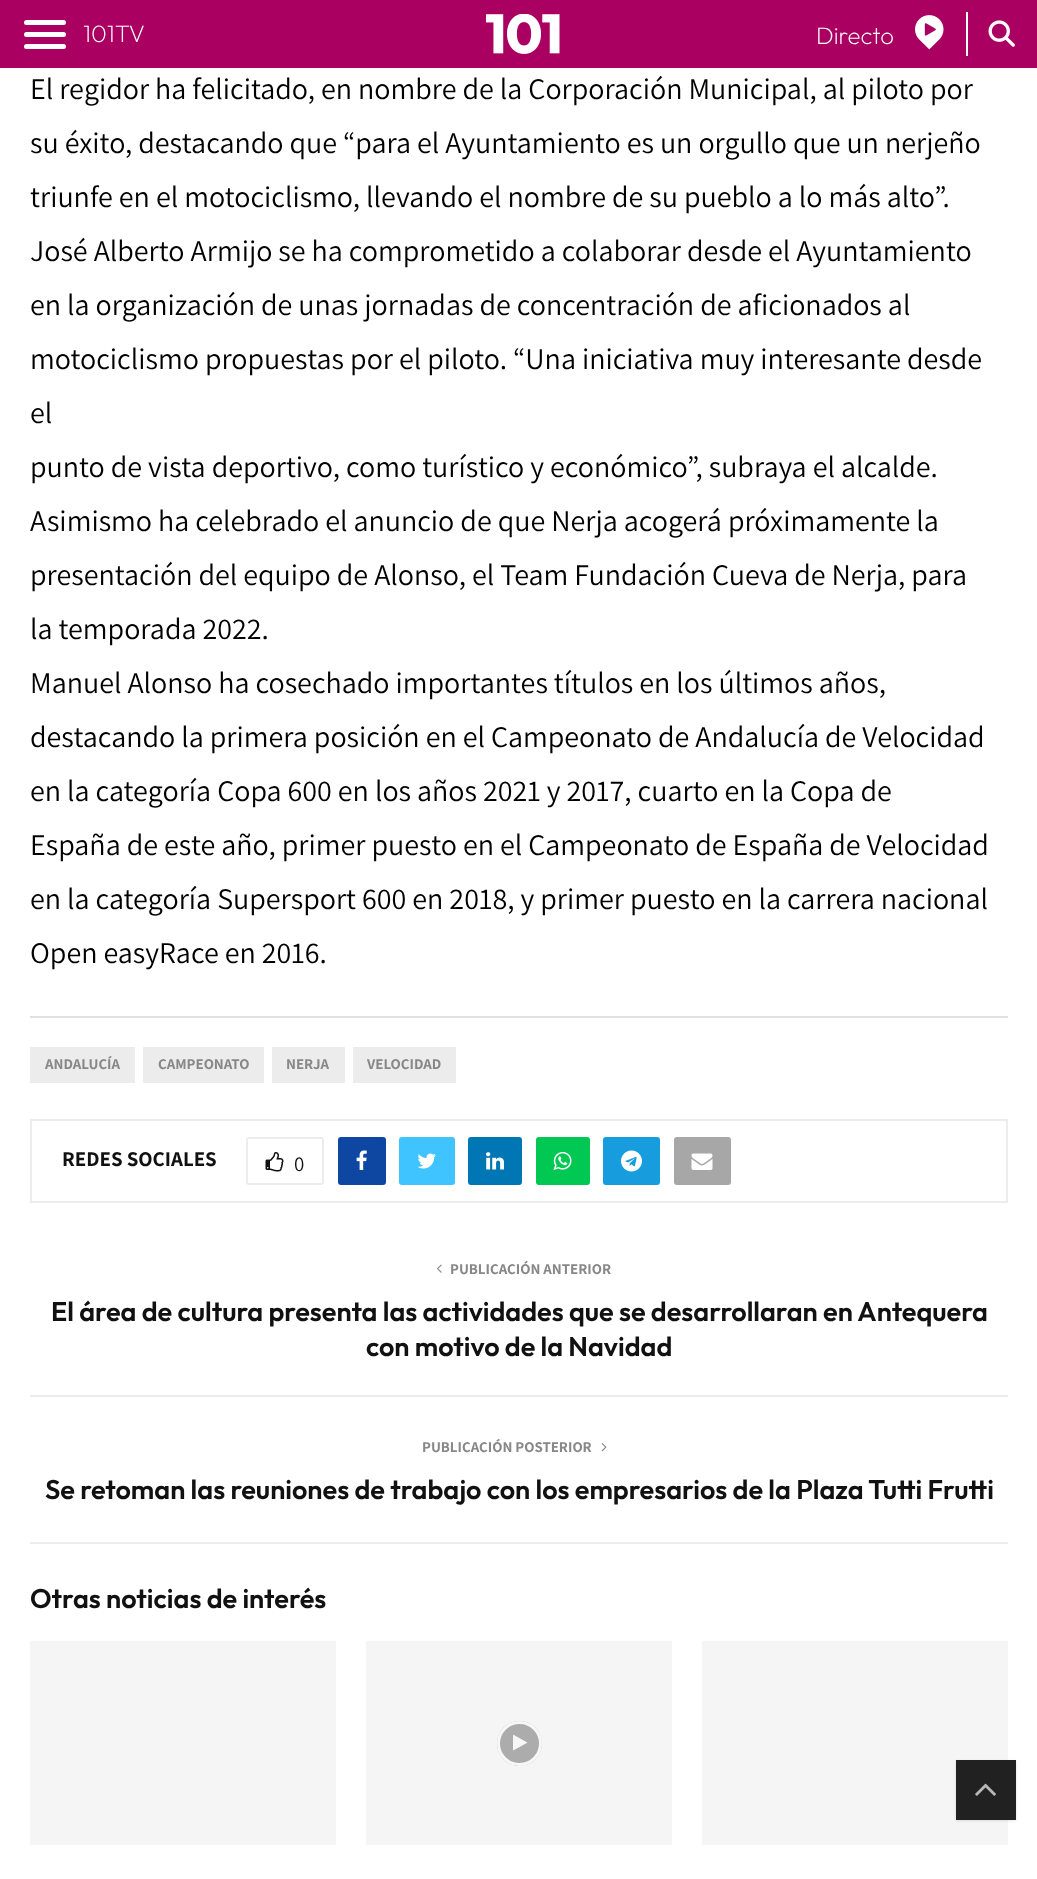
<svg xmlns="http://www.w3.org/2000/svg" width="1037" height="1879">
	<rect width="100%" height="100%" fill="#FFFFFF" />
	<rect x="0" y="0" width="1037" height="68" fill="#AA0061" />
	<rect x="24" y="20" width="42" height="5" rx="2.5" fill="#FFFFFF" />
	<rect x="24" y="32" width="42" height="5" rx="2.5" fill="#FFFFFF" />
	<rect x="24" y="44" width="42" height="5" rx="2.5" fill="#FFFFFF" />
	<text x="83" y="42" font-family="Outfit" font-size="24" font-weight="200" fill="#FFFFFF">101TV</text>
	<image x="486" y="14" width="74" height="40" href="assets/img1.png" />
	<text x="816" y="44" font-family="Outfit" font-size="24" font-weight="200" fill="#FFFFFF">Directo</text>
	<image x="915" y="15" width="29" height="35" href="assets/img2.png" />
	<rect x="966" y="12" width="2" height="44" fill="#FFFFFF" />
	<image x="988" y="20" width="27" height="27" href="assets/img3.png" />
	<g font-family="Assistant" font-size="30" fill="#000000">
		<text x="30" y="99">El regidor ha felicitado, en nombre de la Corporación Municipal, al piloto por</text>
		<text x="30" y="153">su éxito, destacando que “para el Ayuntamiento es un orgullo que un nerjeño</text>
		<text x="30" y="207">triunfe en el motociclismo, llevando el nombre de su pueblo a lo más alto”.</text>
		<text x="30" y="261">José Alberto Armijo se ha comprometido a colaborar desde el Ayuntamiento</text>
		<text x="30" y="315">en la organización de unas jornadas de concentración de aficionados al</text>
		<text x="30" y="369">motociclismo propuestas por el piloto. “Una iniciativa muy interesante desde</text>
		<text x="30" y="423">el</text>
		<text x="30" y="477">punto de vista deportivo, como turístico y económico”, subraya el alcalde.</text>
		<text x="30" y="531">Asimismo ha celebrado el anuncio de que Nerja acogerá próximamente la</text>
		<text x="30" y="585">presentación del equipo de Alonso, el Team Fundación Cueva de Nerja, para</text>
		<text x="30" y="639">la temporada 2022.</text>
		<text x="30" y="693">Manuel Alonso ha cosechado importantes títulos en los últimos años,</text>
		<text x="30" y="747">destacando la primera posición en el Campeonato de Andalucía de Velocidad</text>
		<text x="30" y="801">en la categoría Copa 600 en los años 2021 y 2017, cuarto en la Copa de</text>
		<text x="30" y="855">España de este año, primer puesto en el Campeonato de España de Velocidad</text>
		<text x="30" y="909">en la categoría Supersport 600 en 2018, y primer puesto en la carrera nacional</text>
		<text x="30" y="963">Open easyRace en 2016.</text>
	</g>
	<rect x="30" y="1016" width="978" height="2" fill="#E0E0E0" />
	<rect x="30" y="1047" width="105" height="36" fill="#ECECEC" />
	<text x="45" y="1069" font-family="Assistant" font-size="15" font-weight="700" fill="#888888">ANDALUCÍA</text>
	<rect x="143" y="1047" width="121" height="36" fill="#ECECEC" />
	<text x="158" y="1069" font-family="Assistant" font-size="15" font-weight="700" fill="#888888">CAMPEONATO</text>
	<rect x="272" y="1047" width="73" height="36" fill="#ECECEC" />
	<text x="286" y="1069" font-family="Assistant" font-size="15" font-weight="700" fill="#888888">NERJA</text>
	<rect x="353" y="1047" width="103" height="36" fill="#ECECEC" />
	<text x="367" y="1069" font-family="Assistant" font-size="15" font-weight="700" fill="#888888">VELOCIDAD</text>
	<rect x="31" y="1120" width="976" height="82" fill="none" stroke="#ECECEC" stroke-width="2" />
	<text x="62" y="1166" font-family="Assistant" font-size="21" font-weight="700" fill="#111111">REDES SOCIALES</text>
	<rect x="247" y="1138" width="76" height="46" rx="2" fill="none" stroke="#ECECEC" stroke-width="2" />
	<image x="265" y="1152" width="19" height="20" href="assets/img4.png" />
	<text x="294" y="1171" font-family="Assistant" font-size="21" fill="#111111">0</text>
	<rect x="338" y="1137" width="48" height="48" rx="3" fill="#0D47A1" />
	<image x="356" y="1150" width="11" height="20" href="assets/img5.png" />
	<rect x="399" y="1137" width="56" height="48" rx="3" fill="#40C4FF" />
	<image x="417" y="1153" width="19" height="16" href="assets/img6.png" />
	<rect x="468" y="1137" width="54" height="48" rx="3" fill="#0077B5" />
	<image x="486" y="1152" width="18" height="18" href="assets/img7.png" />
	<rect x="536" y="1137" width="54" height="48" rx="3" fill="#00C853" />
	<image x="553" y="1151" width="19" height="19" href="assets/img8.png" />
	<rect x="603" y="1137" width="57" height="48" rx="3" fill="#179CDE" />
	<image x="621" y="1150" width="21" height="22" href="assets/img9.png" />
	<rect x="674" y="1137" width="57" height="48" rx="3" fill="#A7A7A7" />
	<image x="691" y="1153" width="22" height="17" href="assets/img10.png" />
	<rect x="30" y="1542" width="978" height="2" fill="#ECECEC" />
	<image x="437" y="1264" width="5" height="9" href="assets/img11.png" />
	<text x="450" y="1274" font-family="Assistant" font-size="15" font-weight="700" fill="#888888">PUBLICACIÓN ANTERIOR</text>
	<g font-family="Outfit" font-size="27" font-weight="600" fill="#111111">
		<text x="51" y="1321">El área de cultura presenta las actividades que se desarrollaran en Antequera</text>
		<text x="366" y="1356">con motivo de la Navidad</text>
	</g>
	<rect x="30" y="1395" width="978" height="2" fill="#ECECEC" />
	<text x="422" y="1452" font-family="Assistant" font-size="15" font-weight="700" fill="#888888">PUBLICACIÓN POSTERIOR</text>
	<image x="601" y="1443" width="6" height="9" href="assets/img12.png" />
	<g font-family="Outfit" font-size="27" font-weight="600" fill="#111111">
		<text x="45" y="1499">Se retoman las reuniones de trabajo con los empresarios de la Plaza Tutti Frutti</text>
		<text x="30" y="1608">Otras noticias de interés</text>
	</g>
	<rect x="30" y="1641" width="306" height="204" fill="#F5F5F5" />
	<rect x="366" y="1641" width="306" height="204" fill="#F5F5F5" />
	<circle cx="519.5" cy="1743.5" r="22.5" fill="#ACACAC" />
	<circle cx="519.5" cy="1743.5" r="21" fill="none" stroke="#FFFFFF" stroke-opacity="0.9" stroke-width="3" />
	<image x="513" y="1734" width="14" height="17" href="assets/img13.png" />
	<rect x="702" y="1641" width="306" height="204" fill="#F5F5F5" />
	<rect x="956" y="1761" width="60" height="60" fill="#000000" fill-opacity="0.1" filter="blur(1.5px)" />
	<rect x="956" y="1760" width="60" height="60" fill="#212121" />
	<image x="975" y="1783" width="21" height="13" href="assets/img14.png" />
</svg>
